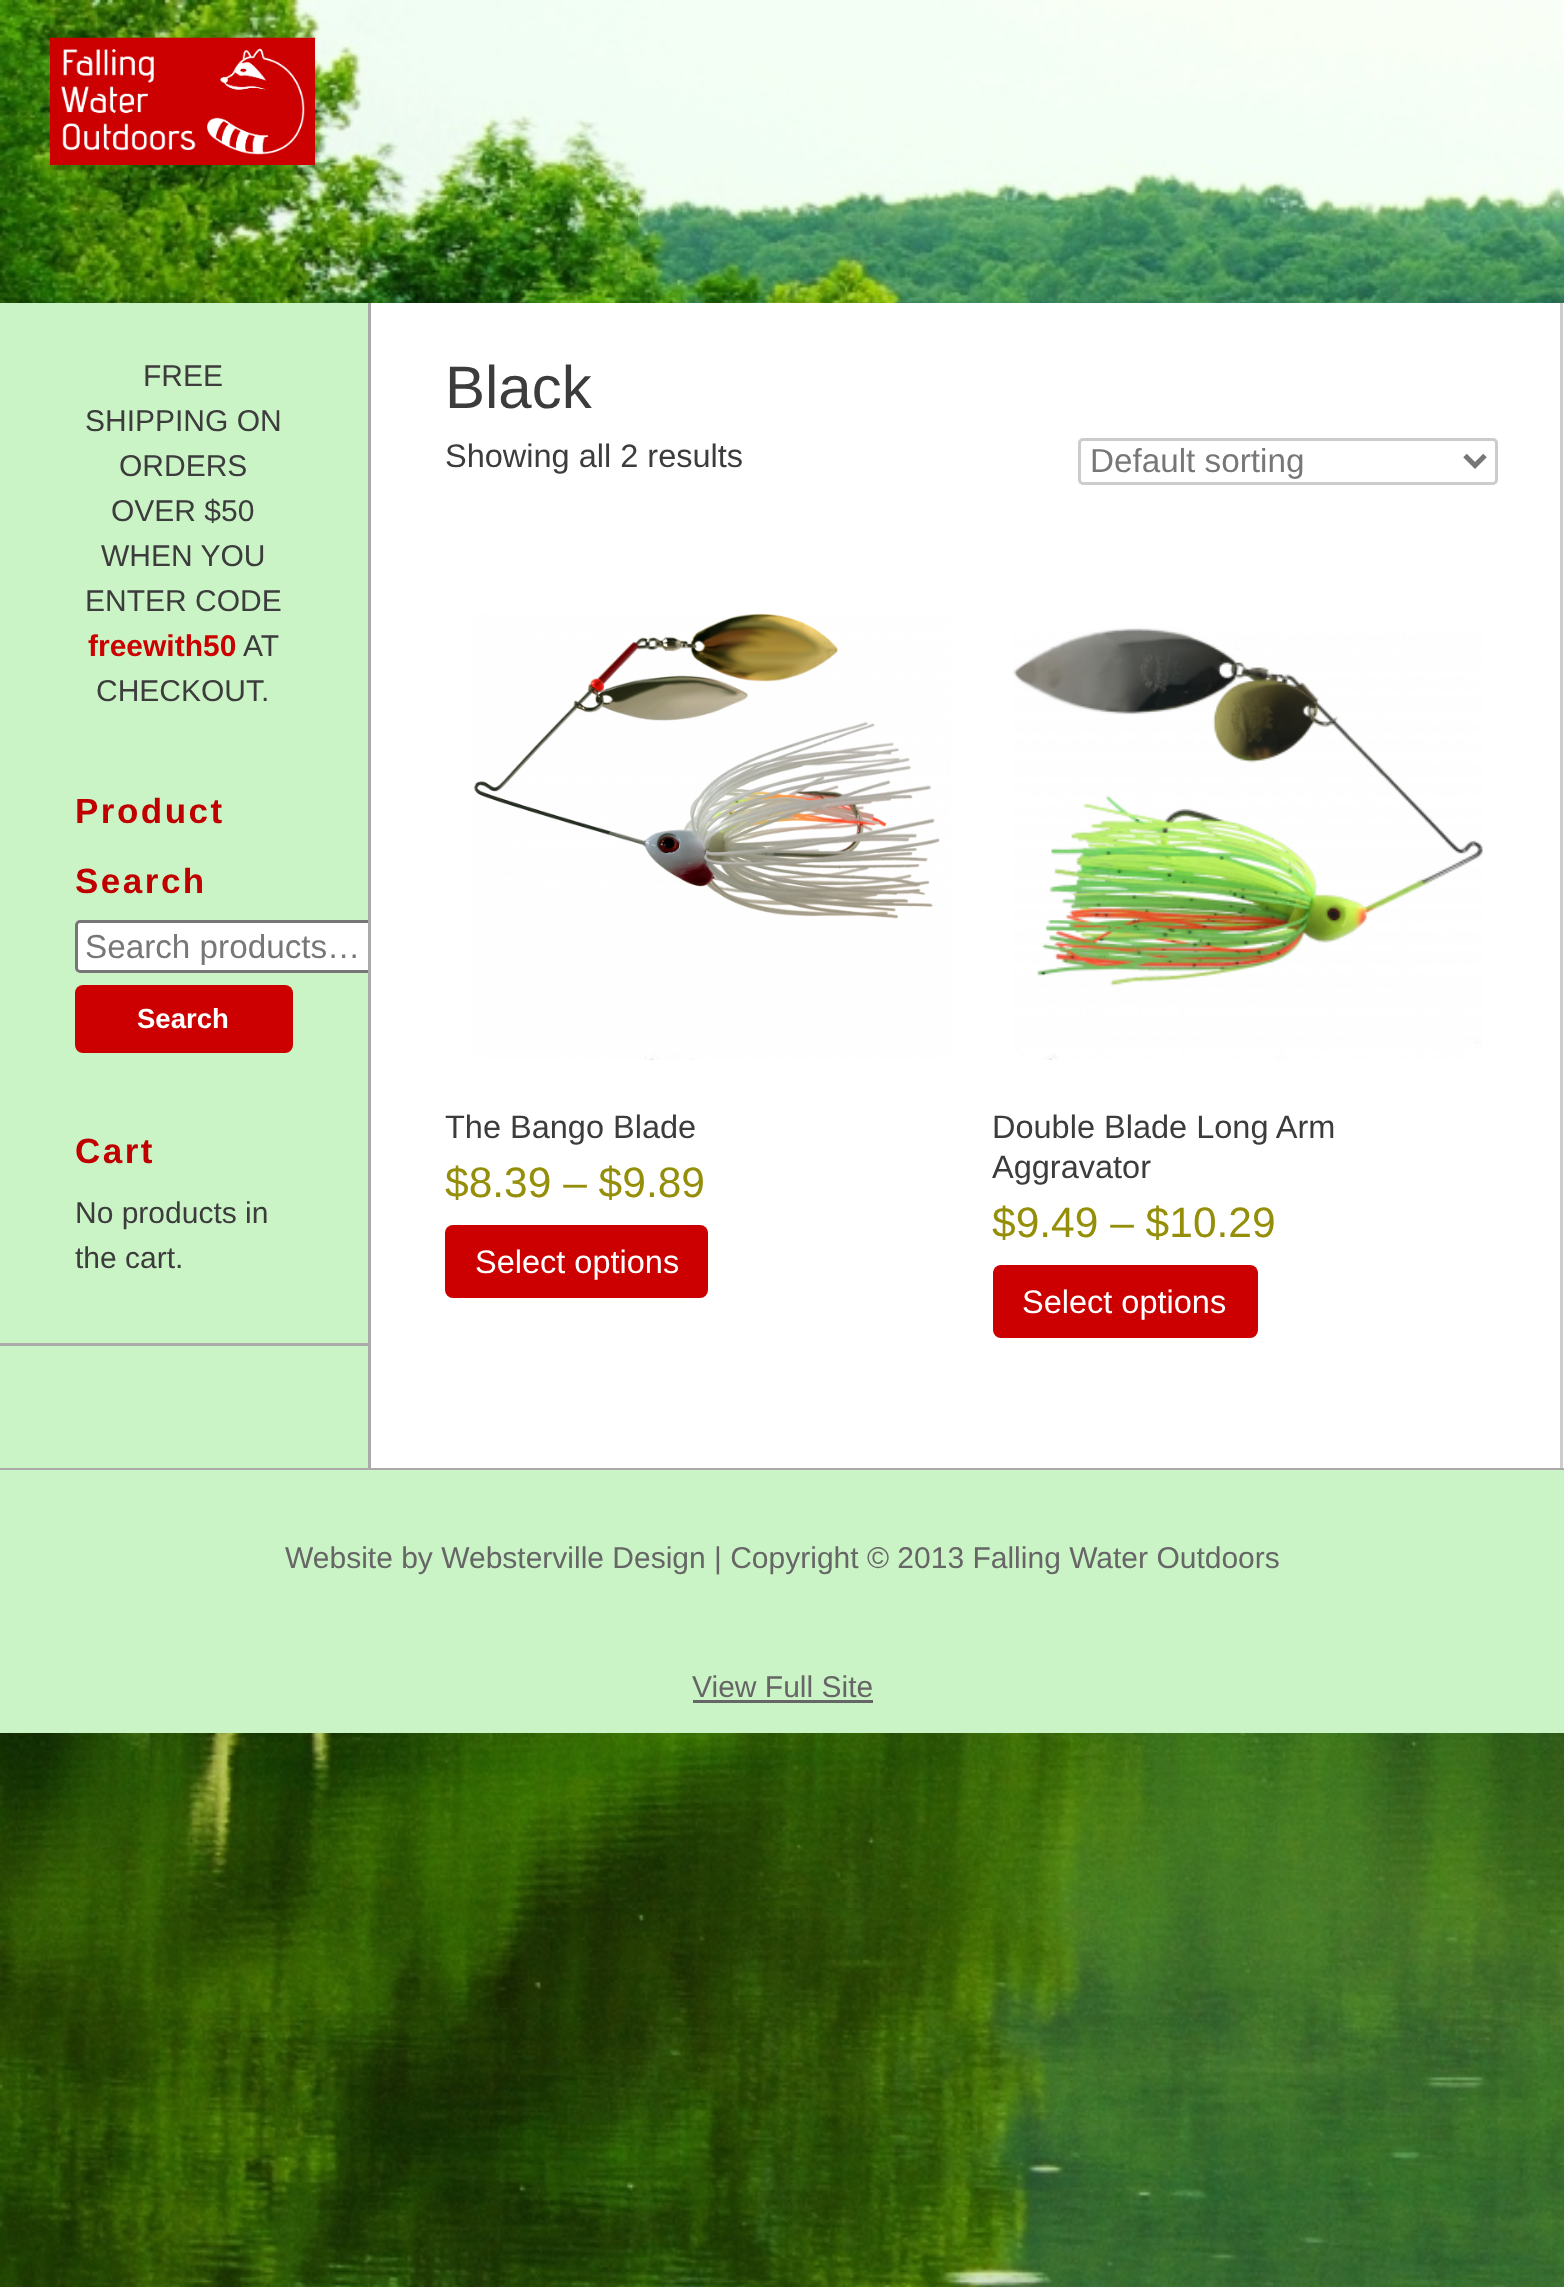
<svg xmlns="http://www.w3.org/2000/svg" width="1564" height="2287">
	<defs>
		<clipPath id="clip1"><rect x="0" y="303" width="368" height="1040" /></clipPath>
	</defs>
	<rect width="100%" height="100%" fill="#FFFFFF" />
	<image x="0" y="0" width="1564" height="2287" href="assets/img1.png" />
	<image x="50" y="37" width="265" height="128" href="assets/img2.png" />
	<rect x="371" y="303" width="1193" height="1165" fill="#FFFFFF" />
	<rect x="0" y="1468" width="1564" height="2" fill="#AAAAAA" />
	<rect x="0" y="303" width="368" height="1165" fill="#CBF4C6" />
	<rect x="368" y="303" width="3" height="1165" fill="#AAAAAA" />
	<rect x="0" y="1343" width="368" height="3" fill="#AAAAAA" />
	<g font-family="Liberation Sans" font-size="30" fill="#3C3C3C">
		<text x="143" y="386">FREE</text>
		<text x="85" y="431">SHIPPING ON</text>
		<text x="119" y="476">ORDERS</text>
		<text x="111" y="521">OVER $50</text>
		<text x="101" y="566">WHEN YOU</text>
		<text x="85" y="611">ENTER CODE</text>
	</g>
	<text x="88" y="656" font-family="Liberation Sans" font-size="30" font-weight="700" fill="#CC0000">freewith50</text>
	<g font-family="Liberation Sans" font-size="30" fill="#3C3C3C">
		<text x="243" y="656">AT</text>
		<text x="96" y="701">CHECKOUT.</text>
	</g>
	<g font-family="Liberation Sans" font-size="35" font-weight="700" letter-spacing="2.5" fill="#C00000">
		<text x="75" y="823">Product</text>
		<text x="75" y="893">Search</text>
	</g>
	<path d="M80 920H368V973H80C77 973 75 971 75 968V925C75 922 77 920 80 920Z" fill="#FFFFFF" />
	<g clip-path="url(#clip1)">
		<rect x="76.5" y="921.5" width="460" height="50" rx="3.5" fill="none" stroke="#767676" stroke-width="3" />
	</g>
	<text x="85" y="958" font-family="Liberation Sans" font-size="33.25" fill="#777777">Search products…</text>
	<rect x="75" y="985" width="218" height="68" rx="8" fill="#CC0000" />
	<text x="137" y="1028" font-family="Liberation Sans" font-size="27.5" font-weight="700" fill="#FFFFFF">Search</text>
	<text x="75" y="1163" font-family="Liberation Sans" font-size="35" font-weight="700" letter-spacing="2.5" fill="#C00000">Cart</text>
	<g font-family="Liberation Sans" font-size="30" fill="#3C3C3C">
		<text x="75" y="1223">No products in</text>
		<text x="75" y="1268">the cart.</text>
	</g>
	<rect x="1560" y="303" width="3" height="1165" fill="#CCCCCC" />
	<text x="445" y="408" font-family="Liberation Sans" font-size="60" fill="#3C3C3C">Black</text>
	<text x="445" y="467" font-family="Liberation Sans" font-size="32.5" fill="#3C3C3C">Showing all 2 results</text>
	<rect x="1079.5" y="439.5" width="417" height="44" rx="3.5" fill="none" stroke="#CCCCCC" stroke-width="3" />
	<path d="M1465 455.5L1475 465.5L1485 455.5" fill="none" stroke="#777777" stroke-width="5" />
	<text x="1090" y="472" font-family="Liberation Sans" font-size="33.25" fill="#777777">Default sorting</text>
	<image x="473" y="613" width="477" height="447" href="assets/img3.png" />
	<text x="445" y="1138" font-family="Liberation Sans" font-size="32.5" fill="#3C3C3C">The Bango Blade</text>
	<text x="445" y="1197" font-family="Liberation Sans" font-size="42.5" fill="#958E09">$8.39 – $9.89</text>
	<rect x="445" y="1225" width="263" height="73" rx="8" fill="#CC0000" />
	<text x="475" y="1273" font-family="Liberation Sans" font-size="32.5" fill="#FFFFFF">Select options</text>
	<image x="1012" y="627" width="471" height="433" href="assets/img4.png" />
	<g font-family="Liberation Sans" font-size="32.5" fill="#3C3C3C">
		<text x="992" y="1138">Double Blade Long Arm</text>
		<text x="992" y="1178">Aggravator</text>
	</g>
	<text x="992" y="1237" font-family="Liberation Sans" font-size="42.5" fill="#958E09">$9.49 – $10.29</text>
	<rect x="993" y="1265" width="265" height="73" rx="8" fill="#CC0000" />
	<text x="1022" y="1313" font-family="Liberation Sans" font-size="32.5" fill="#FFFFFF">Select options</text>
	<rect x="0" y="1470" width="1564" height="263" fill="#CBF4C6" />
	<g font-family="Liberation Sans" font-size="30" fill="#666666">
		<text x="285" y="1568">Website by Websterville Design | Copyright © 2013 Falling Water Outdoors</text>
		<text x="692" y="1697">View Full Site</text>
	</g>
	<rect x="693" y="1700" width="180" height="3" fill="#666666" />
</svg>
